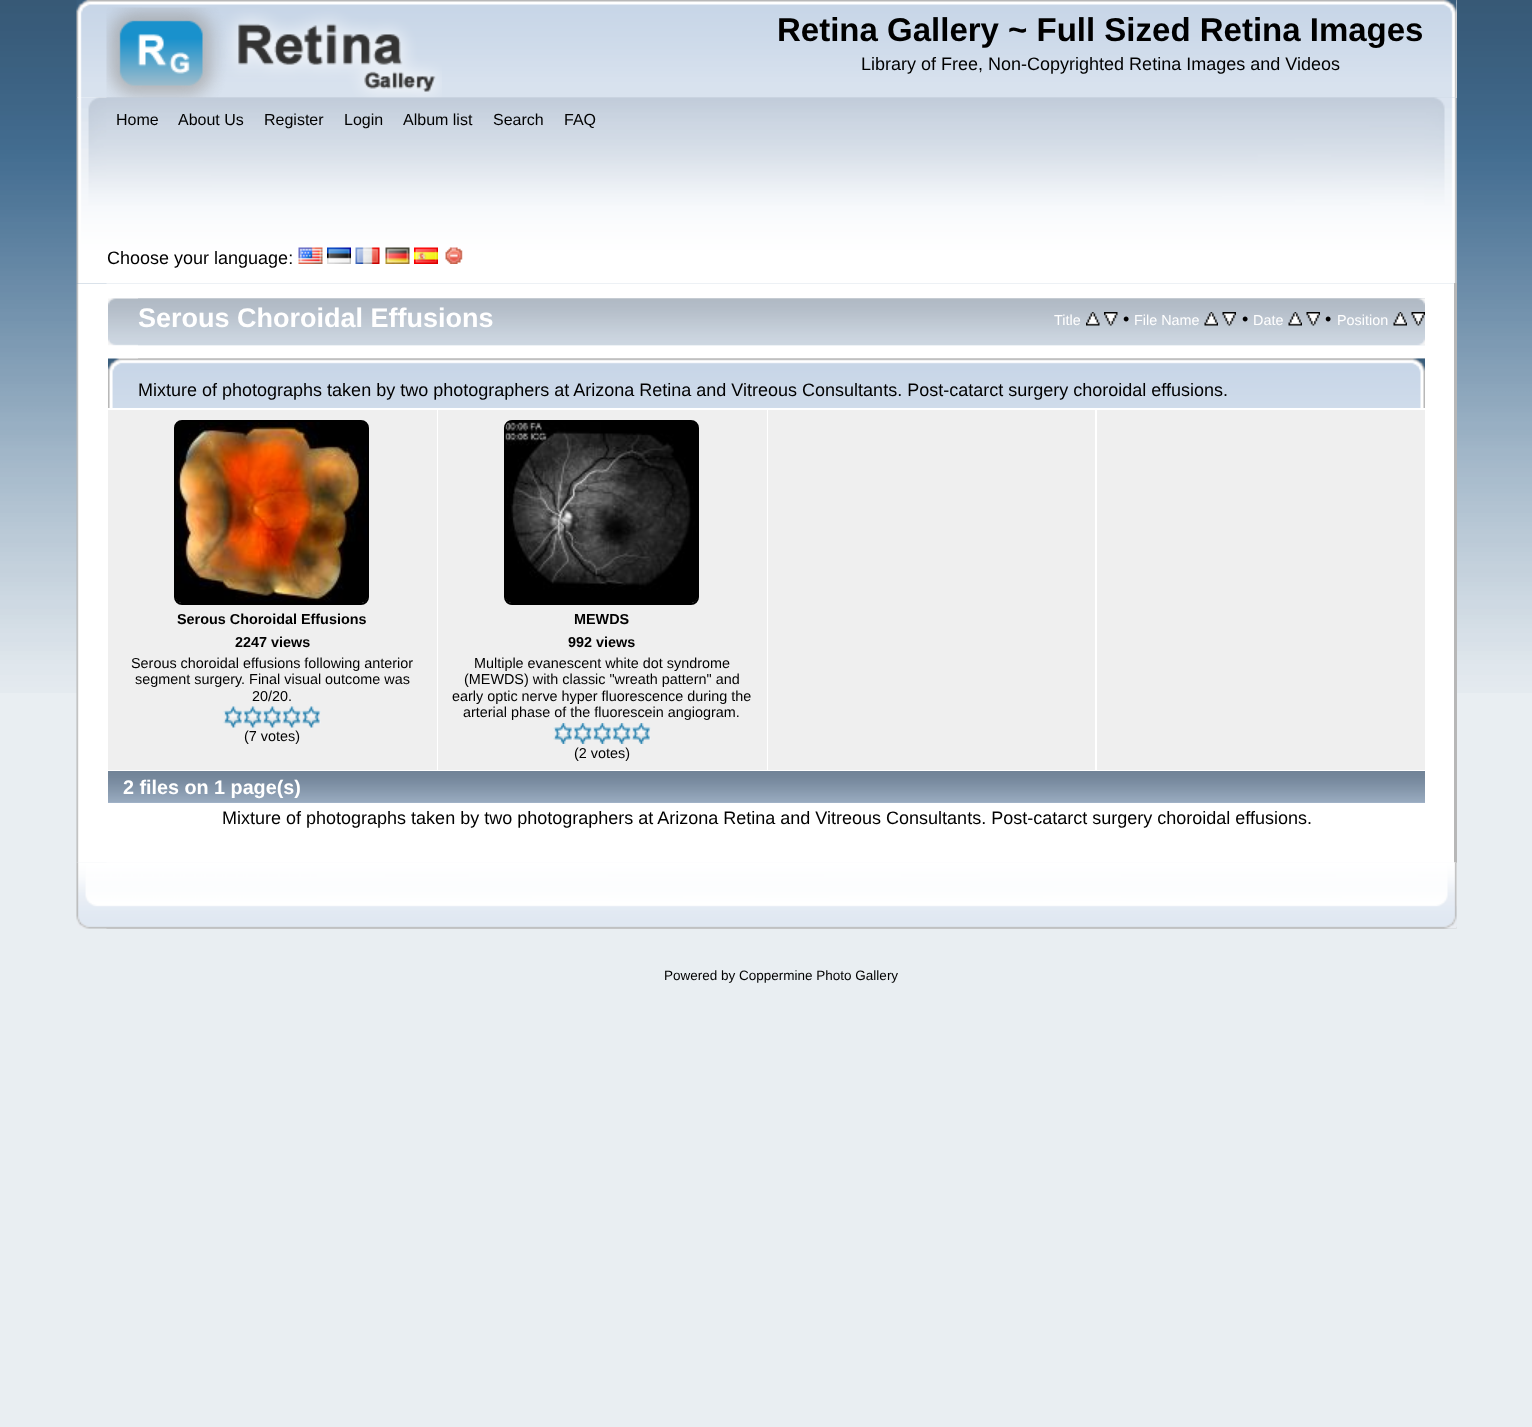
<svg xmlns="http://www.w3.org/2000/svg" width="1532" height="1427">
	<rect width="100%" height="100%" fill="#E9EEF2" />
	<image x="0" y="0" width="1532" height="693" href="assets/img1.png" />
	<rect x="77" y="0" width="1380" height="98" fill="#FEFEFE" />
	<image x="76" y="0" width="1381" height="98" href="assets/img2.png" />
	<image x="106" y="0" width="1351" height="98" href="assets/img3.png" />
	<image x="76" y="97" width="1381" height="187" href="assets/img5.png" />
	<image x="106" y="97" width="1351" height="187" href="assets/img6.png" />
	<image x="106" y="7" width="336" height="91" href="assets/img4.png" />
	<text x="777" y="41" font-family="Liberation Sans" font-size="33" font-weight="700" fill="#000000">Retina Gallery ~ Full Sized Retina Images</text>
	<text x="861" y="70" font-family="Liberation Sans" font-size="18" fill="#000000">Library of Free, Non-Copyrighted Retina Images and Videos</text>
	<g font-family="Liberation Sans" font-size="16" fill="#000000">
		<text x="116" y="125">Home</text>
		<text x="178" y="125">About Us</text>
		<text x="264" y="125">Register</text>
		<text x="344" y="125">Login</text>
		<text x="403" y="125">Album list</text>
		<text x="493" y="125">Search</text>
		<text x="564" y="125">FAQ</text>
	</g>
	<text x="107" y="264" font-family="Liberation Sans" font-size="18" fill="#000000">Choose your language:</text>
	<image x="298" y="247" width="25" height="17" href="assets/img7.png" />
	<image x="327" y="247" width="24" height="17" href="assets/img8.png" />
	<image x="355" y="247" width="25" height="17" href="assets/img9.png" />
	<image x="385" y="247" width="25" height="17" href="assets/img10.png" />
	<image x="414" y="247" width="24" height="17" href="assets/img11.png" />
	<image x="445" y="247" width="18" height="17" href="assets/img12.png" />
	<image x="76" y="283" width="1378" height="580" href="assets/img13.png" />
	<rect x="1454" y="283" width="3" height="580" fill="#B7B7B7" />
	<image x="108" y="298" width="1317" height="110" href="assets/img14.png" />
	<image x="138" y="298" width="1287" height="110" href="assets/img15.png" />
	<text x="138" y="327" font-family="Liberation Sans" font-size="27" font-weight="700" fill="#FFFFFF">Serous Choroidal Effusions</text>
	<text x="1054" y="325" font-family="Liberation Sans" font-size="14.4" fill="#FFFFFF">Title</text>
	<image x="1086" y="312" width="14" height="14" href="assets/img16.png" />
	<image x="1104" y="312" width="14" height="14" href="assets/img17.png" />
	<text x="1123" y="325" font-family="Liberation Sans" font-size="18" fill="#000000">•</text>
	<text x="1134" y="325" font-family="Liberation Sans" font-size="14.4" fill="#FFFFFF">File Name</text>
	<image x="1204" y="312" width="14" height="14" href="assets/img18.png" />
	<image x="1222" y="312" width="14" height="14" href="assets/img19.png" />
	<text x="1242" y="325" font-family="Liberation Sans" font-size="18" fill="#000000">•</text>
	<text x="1253" y="325" font-family="Liberation Sans" font-size="14.4" fill="#FFFFFF">Date</text>
	<image x="1288" y="312" width="14" height="14" href="assets/img18.png" />
	<image x="1306" y="312" width="14" height="14" href="assets/img20.png" />
	<text x="1325" y="325" font-family="Liberation Sans" font-size="18" fill="#000000">•</text>
	<text x="1337" y="325" font-family="Liberation Sans" font-size="14.4" fill="#FFFFFF">Position</text>
	<image x="1393" y="312" width="14" height="14" href="assets/img18.png" />
	<image x="1411" y="312" width="14" height="14" href="assets/img20.png" />
	<text x="138" y="396" font-family="Liberation Sans" font-size="18" fill="#000000">Mixture of photographs taken by two photographers at Arizona Retina and Vitreous Consultants. Post-catarct surgery choroidal effusions.</text>
	<rect x="108" y="410" width="329" height="360" fill="#EFEFEF" />
	<rect x="175" y="421" width="193" height="183" rx="7" fill="none" stroke="#000000" stroke-width="2" />
	<image x="176" y="422" width="191" height="181" href="assets/img21.png" />
	<g font-family="Liberation Sans" font-size="14.4" font-weight="700" fill="#000000">
		<text x="177" y="624">Serous Choroidal Effusions</text>
		<text x="235" y="647">2247 views</text>
	</g>
	<g font-family="Liberation Sans" font-size="14.4" fill="#000000">
		<text x="131" y="668">Serous choroidal effusions following anterior</text>
		<text x="135" y="684">segment surgery. Final visual outcome was</text>
		<text x="252" y="701">20/20.</text>
	</g>
	<image x="223" y="706" width="20" height="22" href="assets/img22.png" />
	<image x="243" y="706" width="20" height="22" href="assets/img23.png" />
	<image x="262" y="706" width="20" height="22" href="assets/img24.png" />
	<image x="282" y="706" width="20" height="22" href="assets/img25.png" />
	<image x="301" y="706" width="20" height="22" href="assets/img26.png" />
	<text x="244" y="741" font-family="Liberation Sans" font-size="14.4" fill="#000000">(7 votes)</text>
	<rect x="438" y="410" width="329" height="360" fill="#EFEFEF" />
	<rect x="505" y="421" width="193" height="183" rx="7" fill="none" stroke="#000000" stroke-width="2" />
	<image x="505" y="422" width="192" height="181" href="assets/img27.png" />
	<g font-family="Liberation Sans" font-size="14.4" font-weight="700" fill="#000000">
		<text x="574" y="624">MEWDS</text>
		<text x="568" y="647">992 views</text>
	</g>
	<g font-family="Liberation Sans" font-size="14.4" fill="#000000">
		<text x="474" y="668">Multiple evanescent white dot syndrome</text>
		<text x="464" y="684">(MEWDS) with classic "wreath pattern" and</text>
		<text x="452" y="701">early optic nerve hyper fluorescence during the</text>
		<text x="463" y="717">arterial phase of the fluorescein angiogram.</text>
	</g>
	<image x="553" y="723" width="20" height="21" href="assets/img28.png" />
	<image x="573" y="723" width="20" height="21" href="assets/img29.png" />
	<image x="592" y="723" width="20" height="21" href="assets/img30.png" />
	<image x="612" y="723" width="20" height="21" href="assets/img31.png" />
	<image x="631" y="723" width="20" height="21" href="assets/img30.png" />
	<text x="574" y="758" font-family="Liberation Sans" font-size="14.4" fill="#000000">(2 votes)</text>
	<rect x="768" y="410" width="327" height="360" fill="#EFEFEF" />
	<rect x="1097" y="410" width="328" height="360" fill="#EFEFEF" />
	<rect x="108" y="802" width="1317" height="1" fill="#A8B8CC" />
	<image x="108" y="771" width="1317" height="32" href="assets/img32.png" />
	<text x="123" y="794" font-family="Liberation Sans" font-size="19.75" font-weight="700" fill="#FFFFFF">2 files on 1 page(s)</text>
	<text x="222" y="824" font-family="Liberation Sans" font-size="18" fill="#000000">Mixture of photographs taken by two photographers at Arizona Retina and Vitreous Consultants. Post-catarct surgery choroidal effusions.</text>
	<image x="76" y="862" width="1381" height="67" href="assets/img33.png" />
	<image x="106" y="862" width="1351" height="67" href="assets/img34.png" />
	<text x="664" y="980" font-family="Liberation Sans" font-size="13.5" fill="#000000">Powered by Coppermine Photo Gallery</text>
</svg>
